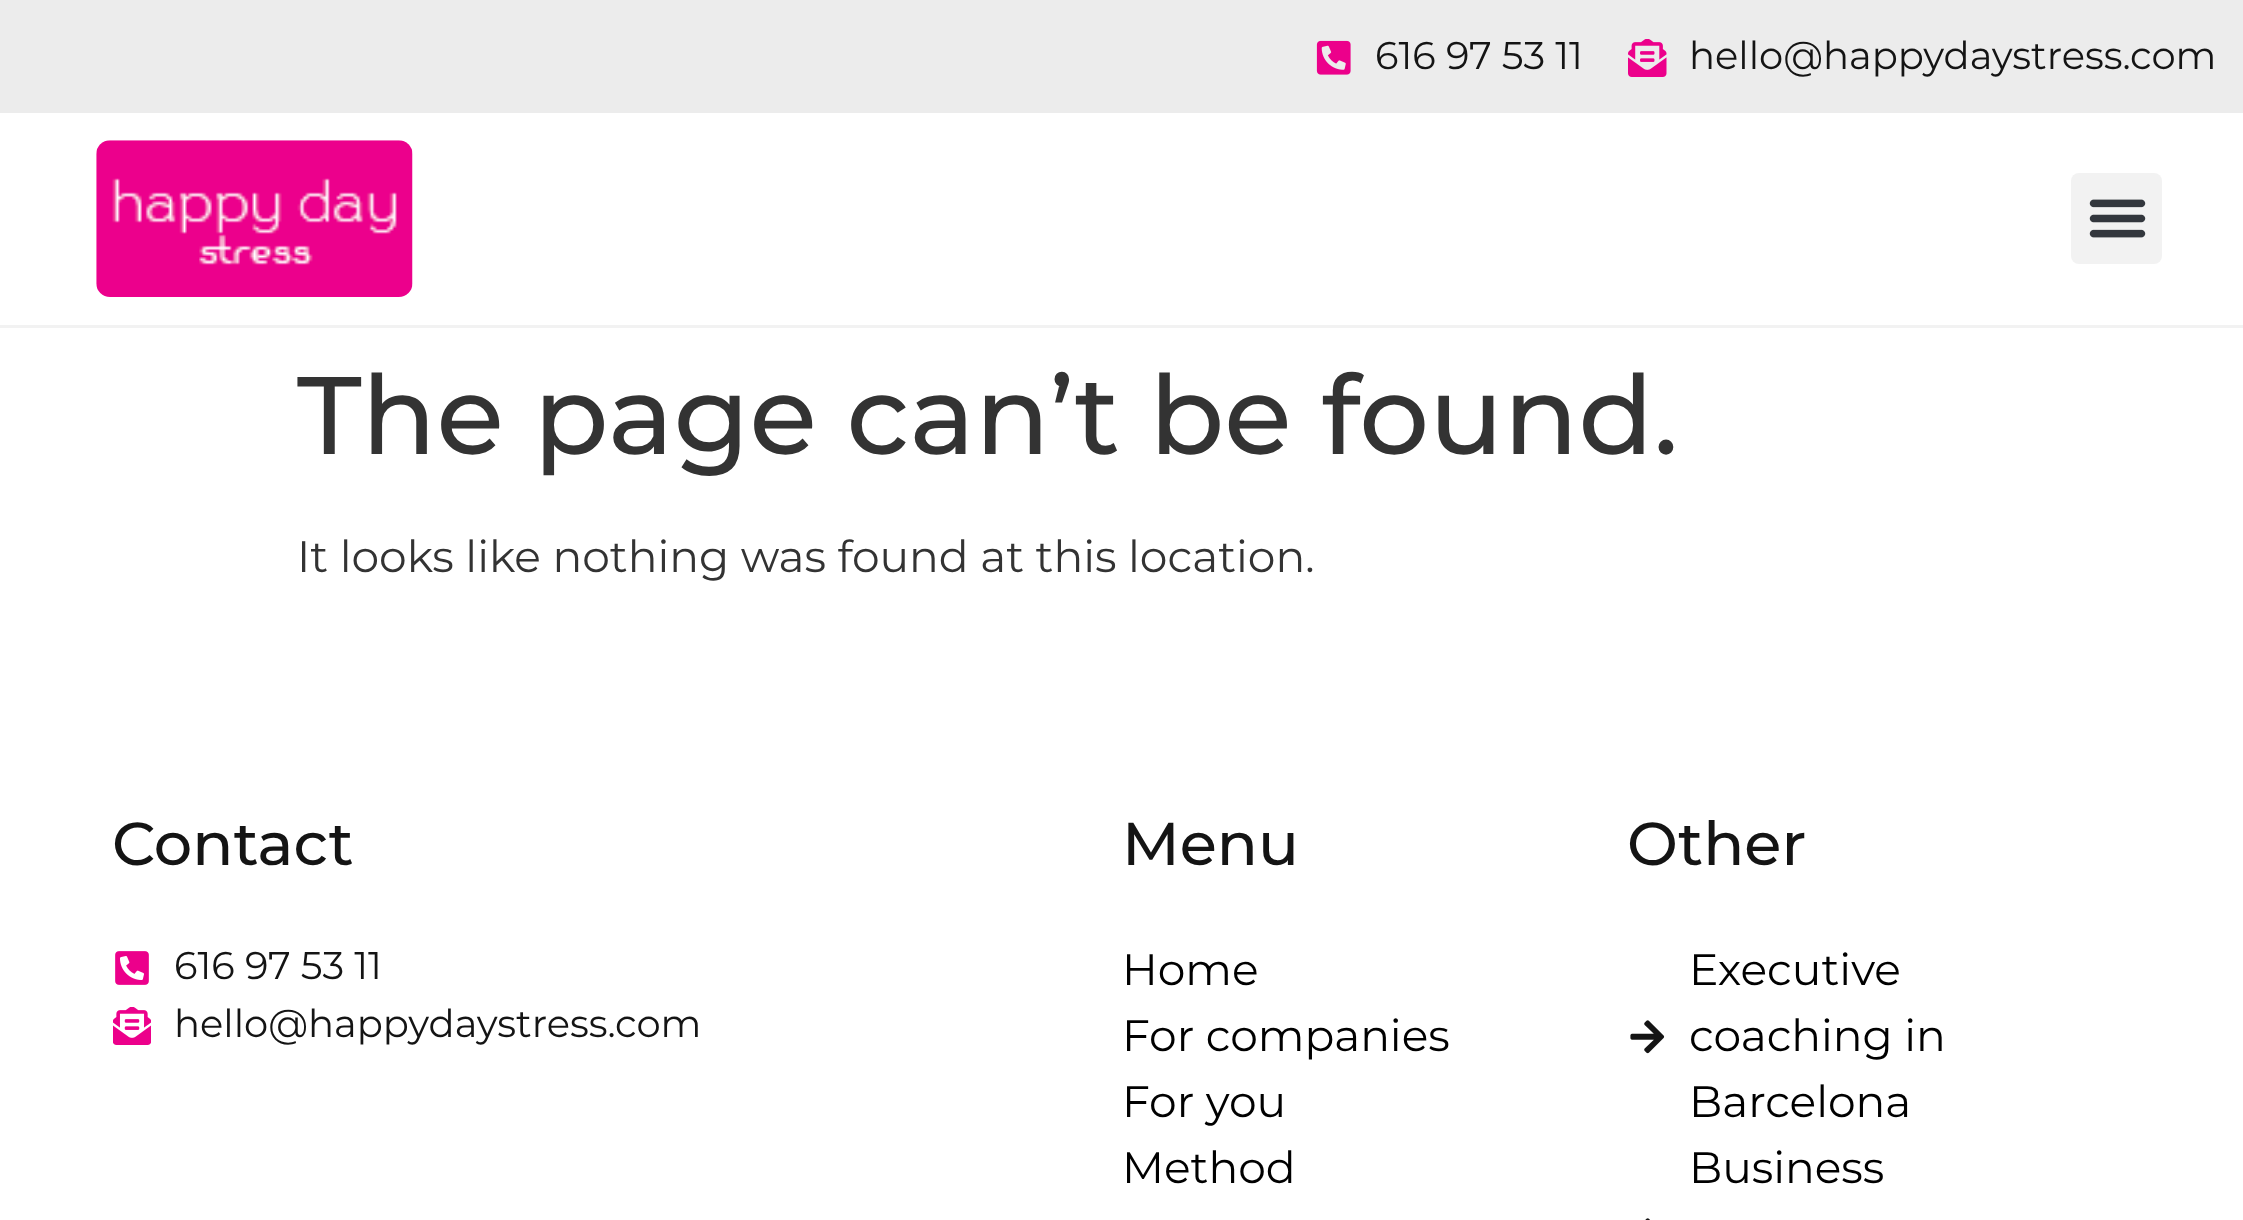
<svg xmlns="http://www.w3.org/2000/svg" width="2243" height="1220">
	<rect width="100%" height="100%" fill="#FFFFFF" />
	<rect x="0" y="0" width="2243" height="113" fill="#ECECEC" />
	<image x="1316" y="40" width="35" height="35" href="assets/img1.png" />
	<text x="1375" y="69" font-family="Montserrat" font-size="38.5" fill="#141414">616 97 53 11</text>
	<image x="1628" y="39" width="39" height="38" href="assets/img2.png" />
	<text x="1689" y="69" font-family="Montserrat" font-size="38.5" fill="#141414">hello@happydaystress.com</text>
	<rect x="0" y="325" width="2243" height="3" fill="#1A1A1A" fill-opacity="0.06" />
	<image x="96" y="140" width="317" height="157" href="assets/img3.png" />
	<rect x="2071" y="173" width="91" height="91" rx="8" fill="#F2F2F2" />
	<image x="2089" y="199" width="57" height="39" href="assets/img4.png" />
	<text x="297" y="454" font-family="Montserrat" font-size="110" font-weight="500" fill="#333333">The page can’t be found.</text>
	<text x="297" y="572" font-family="Montserrat" font-size="44" fill="#333333">It looks like nothing was found at this location.</text>
	<text x="112" y="865" font-family="Montserrat" font-size="60.5" font-weight="500" fill="#141414">Contact</text>
	<image x="115" y="951" width="34" height="34" href="assets/img5.png" />
	<text x="174" y="979" font-family="Montserrat" font-size="38.5" fill="#141414">616 97 53 11</text>
	<image x="113" y="1007" width="38" height="38" href="assets/img6.png" />
	<text x="174" y="1037" font-family="Montserrat" font-size="38.5" fill="#141414">hello@happydaystress.com</text>
	<text x="1122" y="865" font-family="Montserrat" font-size="60.5" font-weight="500" fill="#141414">Menu</text>
	<g font-family="Montserrat" font-size="44" fill="#000000">
		<text x="1122" y="985">Home</text>
		<text x="1122" y="1051">For companies</text>
		<text x="1122" y="1117">For you</text>
		<text x="1122" y="1183">Method</text>
	</g>
	<text x="1627" y="865" font-family="Montserrat" font-size="60.5" font-weight="500" fill="#141414">Other</text>
	<image x="1630" y="1020" width="35" height="34" href="assets/img7.png" />
	<g font-family="Montserrat" font-size="44" fill="#000000">
		<text x="1689" y="985">Executive</text>
		<text x="1689" y="1051">coaching in</text>
		<text x="1689" y="1117">Barcelona</text>
		<text x="1689" y="1183">Business</text>
	</g>
	<image x="1645" y="1218" width="5" height="2" href="assets/img8.png" />
</svg>
